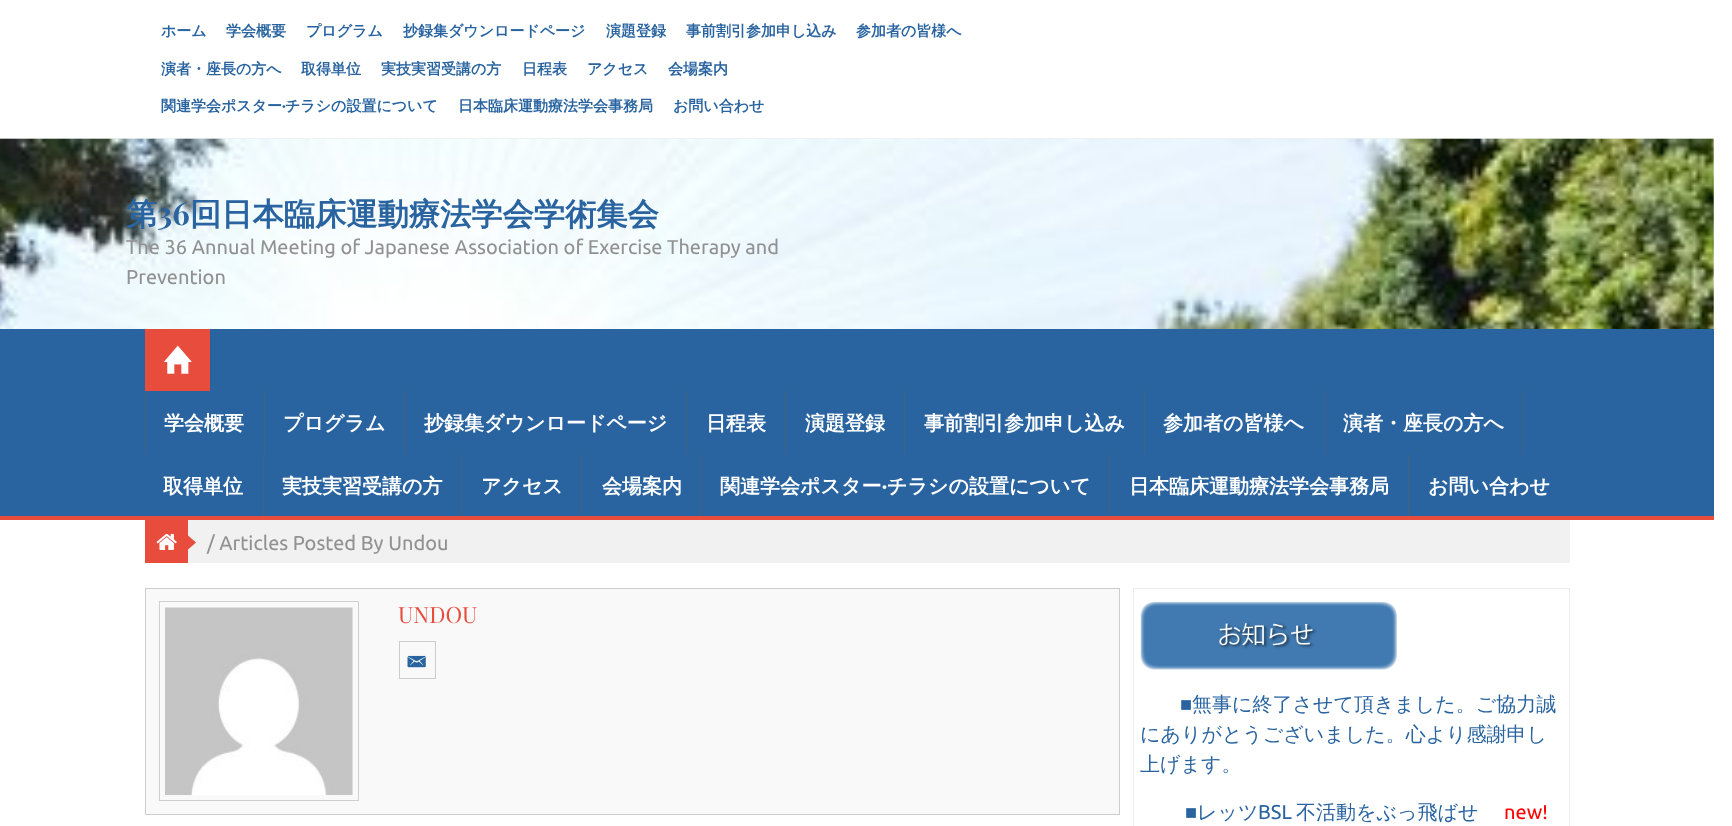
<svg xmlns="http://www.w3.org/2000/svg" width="1732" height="826">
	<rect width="100%" height="100%" fill="#FFFFFF" />
	<rect x="0" y="138" width="1714" height="1" fill="#ECF0F1" />
	<g font-family="WenQuanYi Zen Hei" font-size="15" font-weight="700" fill="#2964A0">
		<text x="161" y="36">ホーム</text>
		<text x="226" y="36">学会概要</text>
		<text x="306" y="36">プログラム</text>
		<text x="403" y="36">抄録集ダウンロードページ</text>
		<text x="606" y="36">演題登録</text>
		<text x="686" y="36">事前割引参加申し込み</text>
		<text x="856" y="36">参加者の皆様へ</text>
		<text x="161" y="74">演者・座長の方へ</text>
		<text x="301" y="74">取得単位</text>
		<text x="381" y="74">実技実習受講の方</text>
		<text x="522" y="74">日程表</text>
		<text x="587" y="74">アクセス</text>
		<text x="668" y="74">会場案内</text>
		<text x="161" y="111">関連学会ポスター</text>
	</g>
	<text x="282" y="111" font-family="Ubuntu" font-size="15" font-weight="700" fill="#2964A0">·</text>
	<g font-family="WenQuanYi Zen Hei" font-size="15" font-weight="700" fill="#2964A0">
		<text x="285" y="111">チラシの設置について</text>
		<text x="458" y="111">日本臨床運動療法学会事務局</text>
		<text x="673" y="111">お問い合わせ</text>
	</g>
	<image x="0" y="138" width="1714" height="191" href="assets/img1.png" />
	<text x="126" y="225" font-family="WenQuanYi Zen Hei" font-size="31.25" font-weight="700" fill="#2964A0">第</text>
	<text x="157" y="225" font-family="Playfair Display" font-size="31.25" font-weight="700" fill="#2964A0">36</text>
	<text x="190" y="225" font-family="WenQuanYi Zen Hei" font-size="31.25" font-weight="700" fill="#2964A0">回日本臨床運動療法学会学術集会</text>
	<g font-family="Ubuntu" font-size="20" fill="#919191">
		<text x="126" y="254">The 36 Annual Meeting of Japanese Association of Exercise Therapy and</text>
		<text x="126" y="284">Prevention</text>
	</g>
	<rect x="0" y="329" width="1714" height="187" fill="#2964A0" />
	<rect x="0" y="516" width="1714" height="4" fill="#E74C3C" />
	<rect x="145" y="329" width="65" height="62" fill="#E74C3C" />
	<image x="163" y="345" width="29" height="29" href="assets/img2.png" />
	<rect x="264" y="391" width="1" height="63" fill="#44617D" />
	<rect x="145" y="391" width="1" height="63" fill="#44617D" />
	<text x="164" y="430" font-family="WenQuanYi Zen Hei" font-size="20" font-weight="700" fill="#FFFFFF">学会概要</text>
	<rect x="404" y="391" width="1" height="63" fill="#44617D" />
	<text x="283" y="430" font-family="WenQuanYi Zen Hei" font-size="20" font-weight="700" fill="#FFFFFF">プログラム</text>
	<rect x="686" y="391" width="1" height="63" fill="#44617D" />
	<text x="424" y="430" font-family="WenQuanYi Zen Hei" font-size="20" font-weight="700" fill="#FFFFFF">抄録集ダウンロードページ</text>
	<rect x="785" y="391" width="1" height="63" fill="#44617D" />
	<text x="706" y="430" font-family="WenQuanYi Zen Hei" font-size="20" font-weight="700" fill="#FFFFFF">日程表</text>
	<rect x="904" y="391" width="1" height="63" fill="#44617D" />
	<text x="805" y="430" font-family="WenQuanYi Zen Hei" font-size="20" font-weight="700" fill="#FFFFFF">演題登録</text>
	<rect x="1144" y="391" width="1" height="63" fill="#44617D" />
	<text x="924" y="430" font-family="WenQuanYi Zen Hei" font-size="20" font-weight="700" fill="#FFFFFF">事前割引参加申し込み</text>
	<rect x="1324" y="391" width="1" height="63" fill="#44617D" />
	<text x="1163" y="430" font-family="WenQuanYi Zen Hei" font-size="20" font-weight="700" fill="#FFFFFF">参加者の皆様へ</text>
	<rect x="1523" y="391" width="1" height="63" fill="#44617D" />
	<text x="1343" y="430" font-family="WenQuanYi Zen Hei" font-size="20" font-weight="700" fill="#FFFFFF">演者・座長の方へ</text>
	<rect x="263" y="454" width="1" height="62" fill="#44617D" />
	<text x="163" y="493" font-family="WenQuanYi Zen Hei" font-size="20" font-weight="700" fill="#FFFFFF">取得単位</text>
	<rect x="461" y="454" width="1" height="62" fill="#44617D" />
	<text x="282" y="493" font-family="WenQuanYi Zen Hei" font-size="20" font-weight="700" fill="#FFFFFF">実技実習受講の方</text>
	<rect x="581" y="454" width="1" height="62" fill="#44617D" />
	<text x="481" y="493" font-family="WenQuanYi Zen Hei" font-size="20" font-weight="700" fill="#FFFFFF">アクセス</text>
	<rect x="700" y="454" width="1" height="62" fill="#44617D" />
	<text x="602" y="493" font-family="WenQuanYi Zen Hei" font-size="20" font-weight="700" fill="#FFFFFF">会場案内</text>
	<rect x="1109" y="454" width="1" height="62" fill="#44617D" />
	<text x="720" y="493" font-family="WenQuanYi Zen Hei" font-size="20" font-weight="700" fill="#FFFFFF">関連学会ポスター</text>
	<text x="882" y="493" font-family="Ubuntu" font-size="20" font-weight="700" fill="#FFFFFF">·</text>
	<text x="887" y="493" font-family="WenQuanYi Zen Hei" font-size="20" font-weight="700" fill="#FFFFFF">チラシの設置について</text>
	<rect x="1408" y="454" width="1" height="62" fill="#44617D" />
	<g font-family="WenQuanYi Zen Hei" font-size="20" font-weight="700" fill="#FFFFFF">
		<text x="1129" y="493">日本臨床運動療法学会事務局</text>
		<text x="1428" y="493">お問い合わせ</text>
	</g>
	<rect x="188" y="520" width="1382" height="43" fill="#F1F1F1" />
	<rect x="145" y="520" width="43" height="43" fill="#E74C3C" />
	<image x="156" y="533" width="21" height="17" href="assets/img3.png" />
	<path d="M187.5 550V535L196 542.5Z" fill="#E74C3C" />
	<text x="207" y="550" font-family="Ubuntu" font-size="20" fill="#919191">/ Articles Posted By Undou</text>
	<rect x="145.5" y="588.5" width="974" height="226" fill="#F9F9F9" stroke="#CECDCD" />
	<rect x="159.5" y="601.5" width="199" height="199" fill="none" stroke="#CECECE" />
	<image x="165" y="607" width="188" height="188" href="assets/img4.png" />
	<text x="398" y="623" font-family="Playfair Display" font-size="22.5" fill="#E74C3C">UNDOU</text>
	<rect x="399.5" y="641.5" width="36" height="37" fill="none" stroke="#CCCCCC" />
	<image x="407" y="655" width="19" height="13" href="assets/img5.png" />
	<rect x="1133.5" y="588.5" width="436" height="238" fill="none" stroke="#EDEDED" />
	<image x="1140" y="601" width="257" height="69" href="assets/img6.png" />
	<text x="1180" y="711" font-family="Liberation Sans" font-size="20" fill="#2964A0">■</text>
	<g font-family="WenQuanYi Zen Hei" font-size="20" font-weight="500" fill="#2964A0">
		<text x="1192" y="711">無事に終了させて頂きました。ご協力誠</text>
		<text x="1140" y="741">にありがとうございました。心より感謝申し</text>
		<text x="1140" y="771">上げます。</text>
	</g>
	<text x="1185" y="819" font-family="Liberation Sans" font-size="20" fill="#2964A0">■</text>
	<text x="1197" y="819" font-family="WenQuanYi Zen Hei" font-size="20" font-weight="500" fill="#2964A0">レッツ</text>
	<text x="1258" y="819" font-family="Ubuntu" font-size="20" fill="#2964A0">BSL</text>
	<text x="1296" y="819" font-family="WenQuanYi Zen Hei" font-size="20" font-weight="500" fill="#2964A0">不活動をぶっ飛ばせ</text>
	<text x="1504" y="819" font-family="Ubuntu" font-size="20" fill="#FF0000">new!</text>
</svg>
